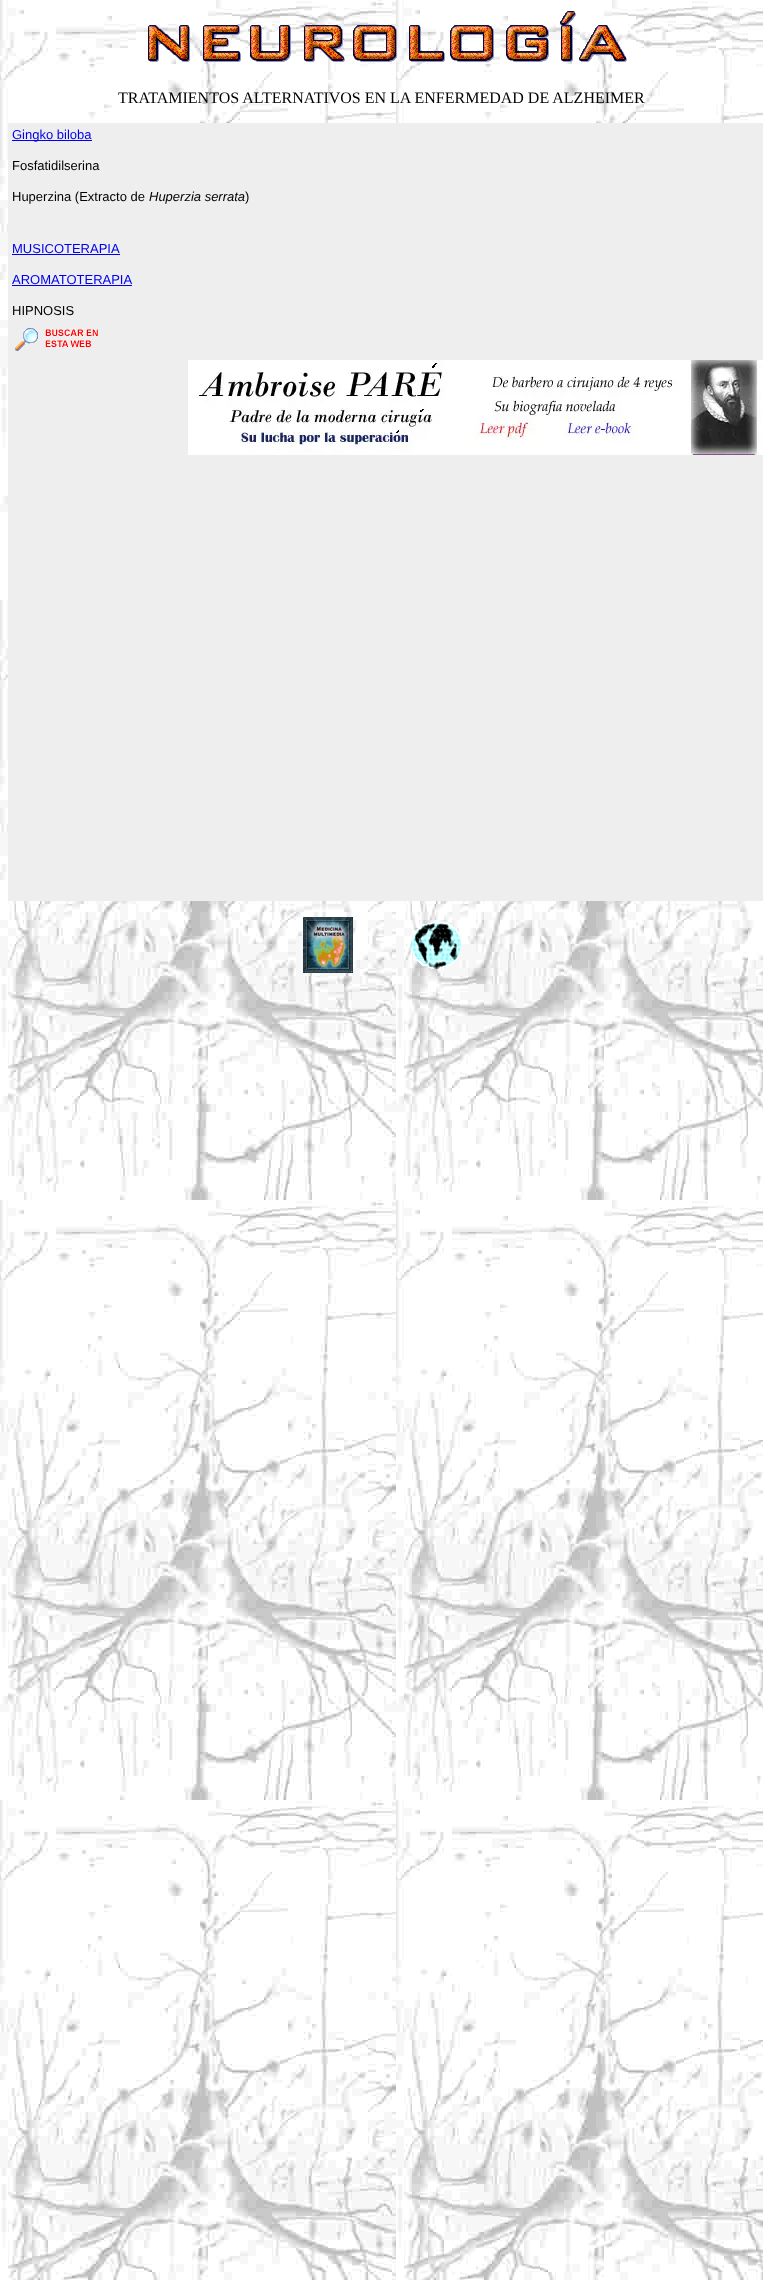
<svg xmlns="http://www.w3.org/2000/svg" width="763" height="2280">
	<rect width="100%" height="100%" fill="#FFFFFF" />
	<image x="0" y="0" width="763" height="2280" href="assets/img1.png" />
	<image x="148" y="11" width="479" height="51" href="assets/img2.png" />
	<text x="118" y="103" font-family="Liberation Serif" font-size="16" fill="#000000">TRATAMIENTOS ALTERNATIVOS EN LA ENFERMEDAD DE ALZHEIMER</text>
	<rect x="8" y="123" width="755" height="778" fill="#EEEEEE" />
	<rect x="12" y="140" width="80" height="1" fill="#0000EE" />
	<text x="12" y="139" font-family="Liberation Sans" font-size="13" fill="#0000EE">Gingko biloba</text>
	<g font-family="Liberation Sans" font-size="13" fill="#000000">
		<text x="12" y="170">Fosfatidilserina</text>
		<text x="12" y="201">Huperzina (Extracto de</text>
	</g>
	<text x="149" y="201" font-family="Liberation Sans" font-size="13" font-style="italic" fill="#000000">Huperzia serrata</text>
	<text x="245" y="201" font-family="Liberation Sans" font-size="13" fill="#000000">)</text>
	<text x="12" y="253" font-family="Liberation Sans" font-size="13" fill="#0000EE">MUSICOTERAPIA</text>
	<rect x="12" y="254" width="108" height="1" fill="#0000EE" />
	<text x="12" y="284" font-family="Liberation Sans" font-size="13" fill="#0000EE">AROMATOTERAPIA</text>
	<rect x="12" y="285" width="120" height="1" fill="#0000EE" />
	<text x="12" y="315" font-family="Liberation Sans" font-size="13" fill="#000000">HIPNOSIS</text>
	<image x="15" y="328" width="83" height="23" href="assets/img3.png" />
	<image x="188" y="360" width="575" height="95" href="assets/img4.png" />
	<image x="303" y="917" width="50" height="56" href="assets/img5.png" />
	<image x="411" y="921" width="50" height="48" href="assets/img6.png" />
</svg>
